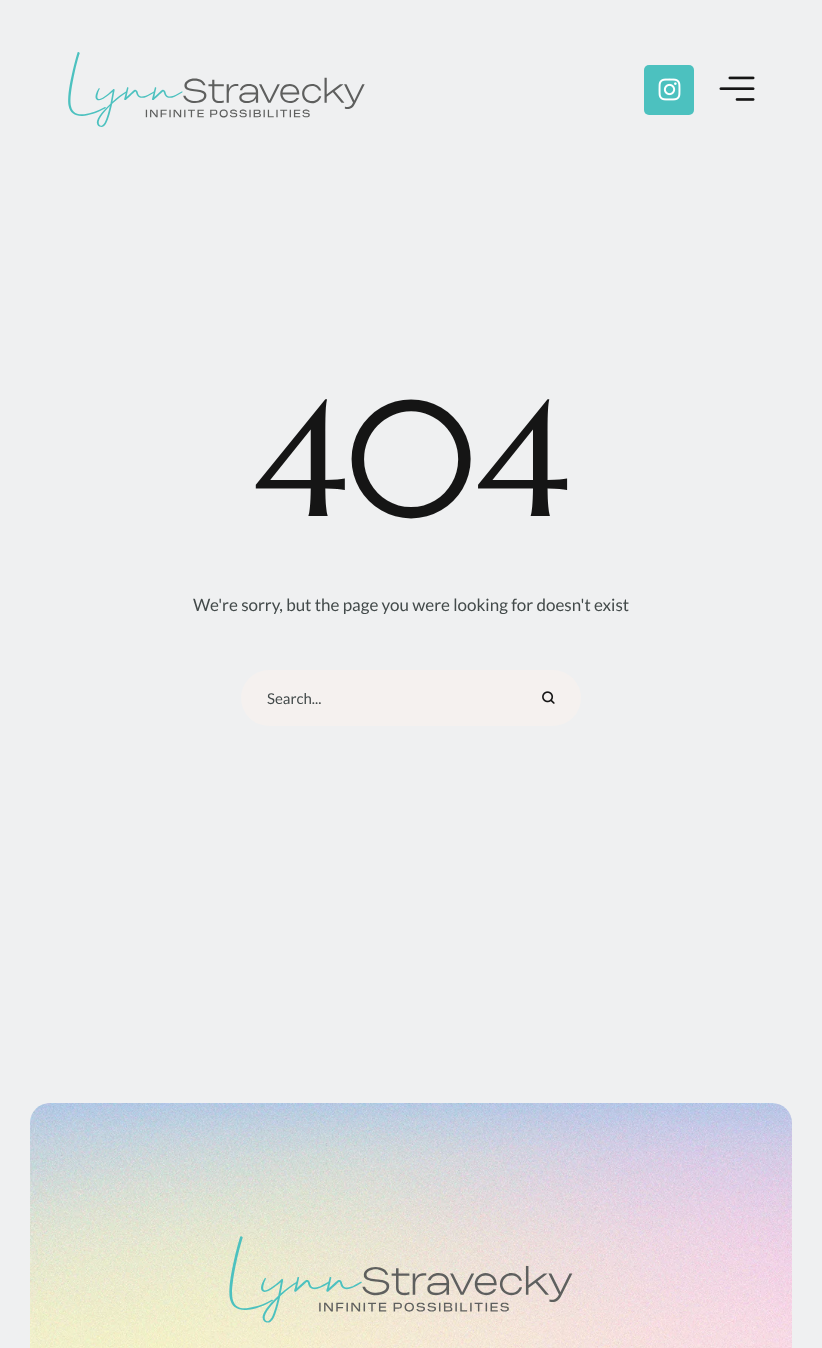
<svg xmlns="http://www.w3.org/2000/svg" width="822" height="1348">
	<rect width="100%" height="100%" fill="#EFF0F1" />
	<image x="68" y="52" width="297" height="75" href="assets/img1.png" />
	<rect x="644" y="65" width="50" height="50" rx="5" fill="#4CC1BF" />
	<image x="658" y="78" width="23" height="23" href="assets/img2.png" />
	<image x="719" y="76" width="36" height="25" href="assets/img3.png" />
	<text x="253" y="516" font-family="Marcellus" font-size="164" letter-spacing="-2" fill="#151515">404</text>
	<text x="193" y="611" font-family="Lato" font-size="17" fill="#434A4A">We're sorry, but the page you were looking for doesn't exist</text>
	<rect x="241" y="670" width="340" height="56" rx="28" fill="#F5F1EF" />
	<text x="267" y="704" font-family="Lato" font-size="15" fill="#434A4A">Search...</text>
	<image x="542" y="691" width="13" height="13" href="assets/img4.png" />
	<image x="30" y="1103" width="762" height="245" href="assets/img5.png" />
	<image x="229" y="1236" width="344" height="87" href="assets/img6.png" />
</svg>
